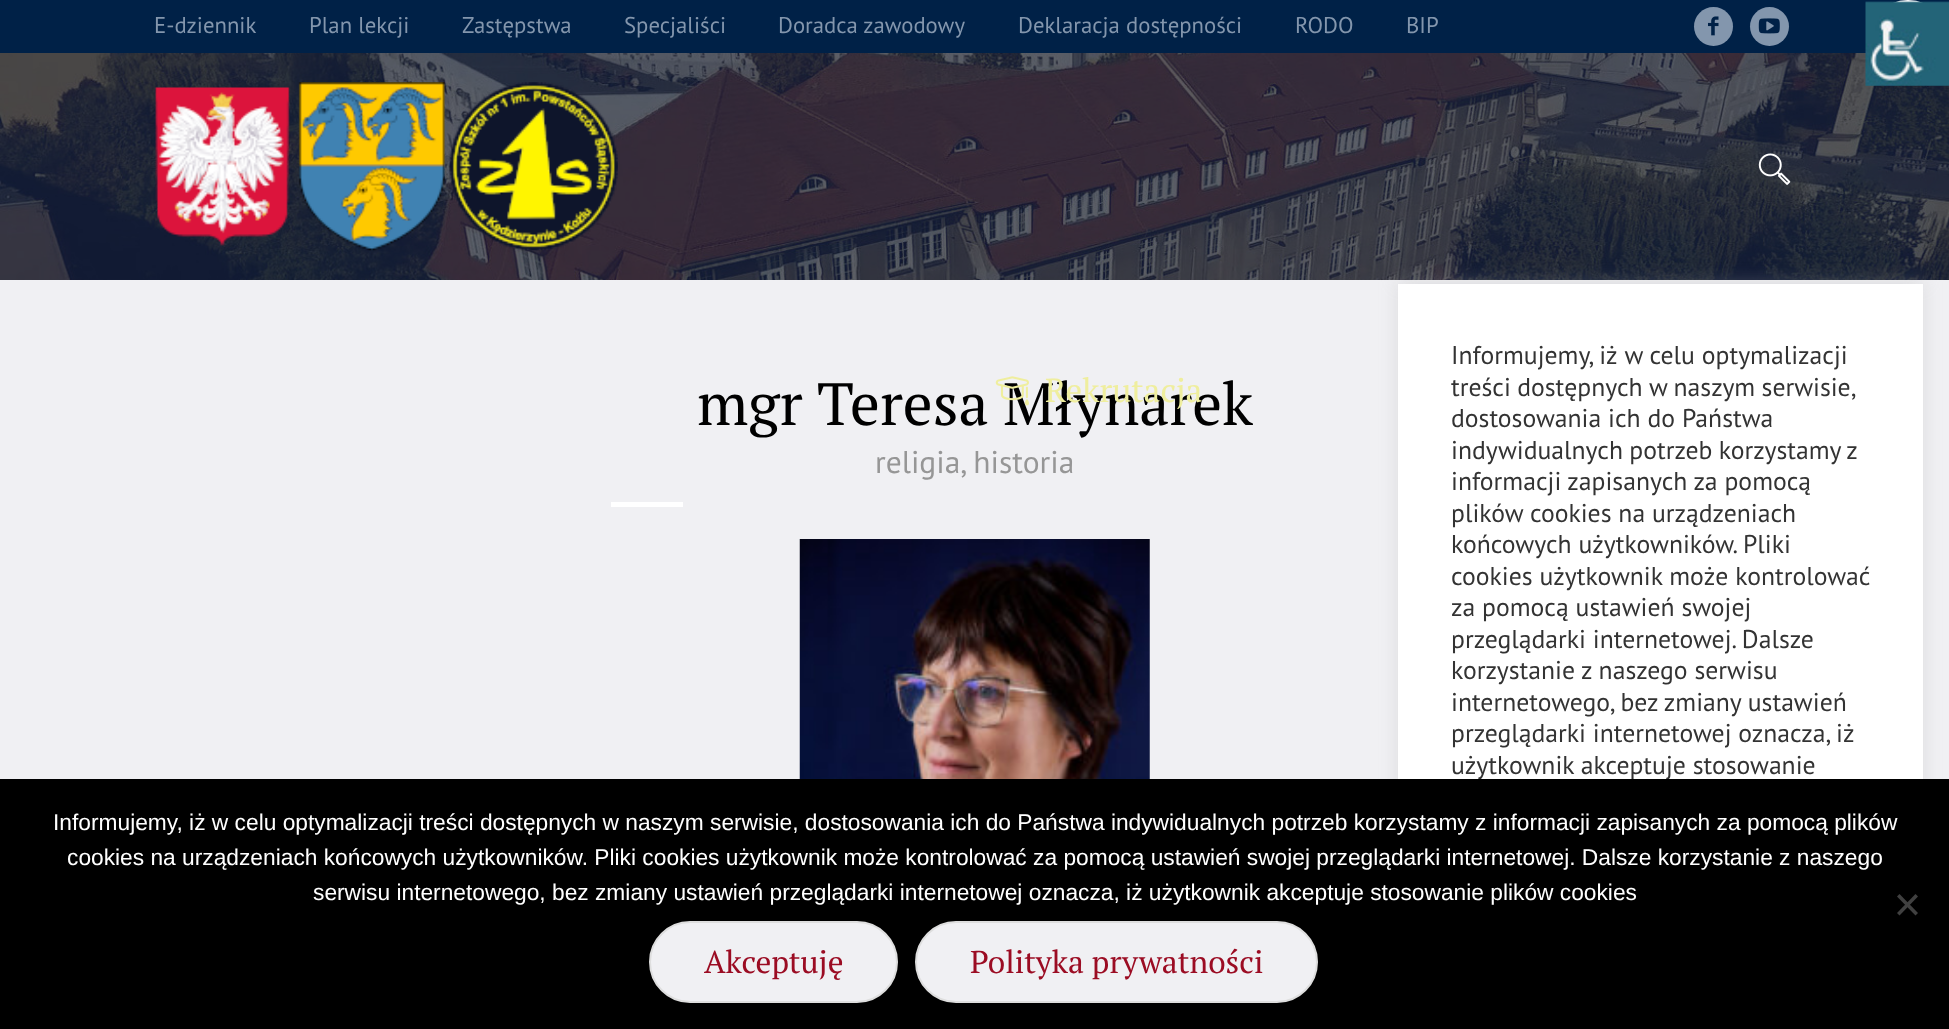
<svg xmlns="http://www.w3.org/2000/svg" width="1949" height="1029">
	<rect width="100%" height="100%" fill="#F0F0F3" />
	<rect x="0" y="0" width="1949" height="53" fill="#002147" />
	<g font-family="PT Sans" font-size="22.75" fill="#8396AD">
		<text x="154" y="33">E-dziennik</text>
		<text x="309" y="33">Plan lekcji</text>
		<text x="462" y="33">Zastępstwa</text>
		<text x="624" y="33">Specjaliści</text>
		<text x="778" y="33">Doradca zawodowy</text>
		<text x="1018" y="33">Deklaracja dostępności</text>
		<text x="1295" y="33">RODO</text>
		<text x="1406" y="33">BIP</text>
	</g>
	<circle cx="1713.5" cy="26.5" r="19.5" fill="#8396AD" />
	<image x="1708" y="16" width="11" height="20" href="assets/img1.png" />
	<circle cx="1769.5" cy="26.5" r="19.5" fill="#8396AD" />
	<image x="1758" y="18" width="22" height="16" href="assets/img2.png" />
	<image x="0" y="53" width="1949" height="227" href="assets/img6.png" />
	<rect x="0" y="53" width="1949" height="227" fill="#222730" fill-opacity="0.5" />
	<image x="155" y="82" width="463" height="169" href="assets/img3.png" />
	<image x="1758" y="153" width="33" height="32" href="assets/img4.png" />
	<text x="697" y="425" font-family="PT Serif" font-size="59.5" fill="#000000">mgr Teresa Młynarek</text>
	<image x="995" y="376" width="34" height="30" href="assets/img5.png" />
	<text x="1045" y="402" font-family="PT Serif" font-size="33.25" fill="#EFEE9E">Rekrutacja</text>
	<rect x="611" y="502" width="72" height="5" fill="#FFFFFF" />
	<text x="875" y="473" font-family="PT Sans" font-size="31.5" fill="#969696">religia, historia</text>
	<image x="799" y="539" width="351" height="240" href="assets/img7.png" />
	<circle cx="1908" cy="42" r="42" fill="#FFFFFF" />
	<image x="1865" y="1" width="84" height="85" href="assets/img8.png" />
	<rect x="1398" y="282" width="525" height="719" fill="#ACABAB" fill-opacity="0.3" filter="blur(9px)" />
	<rect x="1398" y="284" width="525" height="495" fill="#FFFFFF" />
	<g font-family="PT Sans" font-size="25.7" fill="#333333">
		<text x="1451" y="364">Informujemy, iż w celu optymalizacji</text>
		<text x="1451" y="396" word-spacing="-0.5">treści dostępnych w naszym serwisie,</text>
		<text x="1451" y="427">dostosowania ich do Państwa</text>
		<text x="1451" y="459" word-spacing="-0.5">indywidualnych potrzeb korzystamy z</text>
		<text x="1451" y="490">informacji zapisanych za pomocą</text>
		<text x="1451" y="522">plików cookies na urządzeniach</text>
		<text x="1451" y="553">końcowych użytkowników. Pliki</text>
		<text x="1451" y="585">cookies użytkownik może kontrolować</text>
		<text x="1451" y="616">za pomocą ustawień swojej</text>
		<text x="1451" y="648">przeglądarki internetowej. Dalsze</text>
		<text x="1451" y="679">korzystanie z naszego serwisu</text>
		<text x="1451" y="711">internetowego, bez zmiany ustawień</text>
		<text x="1451" y="742">przeglądarki internetowej oznacza, iż</text>
		<text x="1451" y="774">użytkownik akceptuje stosowanie</text>
	</g>
	<rect x="0" y="779" width="1949" height="250" fill="#000000" />
	<g font-family="Liberation Sans" font-size="22.75" fill="#FFFFFF">
		<text x="53" y="830">Informujemy, iż w celu optymalizacji treści dostępnych w naszym serwisie, dostosowania ich do Państwa indywidualnych potrzeb korzystamy z informacji zapisanych za pomocą plików</text>
		<text x="67" y="865">cookies na urządzeniach końcowych użytkowników. Pliki cookies użytkownik może kontrolować za pomocą ustawień swojej przeglądarki internetowej. Dalsze korzystanie z naszego</text>
		<text x="313" y="900">serwisu internetowego, bez zmiany ustawień przeglądarki internetowej oznacza, iż użytkownik akceptuje stosowanie plików cookies</text>
	</g>
	<path d="M1915.5 894L1918 896.5L1899.5 915.5L1897 913Z" fill="#404040" />
	<path d="M1897 896.5L1899.5 894L1918 913L1915.5 915.5Z" fill="#404040" />
	<rect x="650" y="922" width="247" height="80" rx="40" fill="#F0F0F3" stroke="#DEDEDE" stroke-width="2" />
	<text x="704" y="973" font-family="PT Serif" font-size="31.5" fill="#9B0C23">Akceptuję</text>
	<rect x="916" y="922" width="401" height="80" rx="40" fill="#F0F0F3" stroke="#DEDEDE" stroke-width="2" />
	<text x="970" y="973" font-family="PT Serif" font-size="31.5" fill="#9B0C23">Polityka prywatności</text>
</svg>
